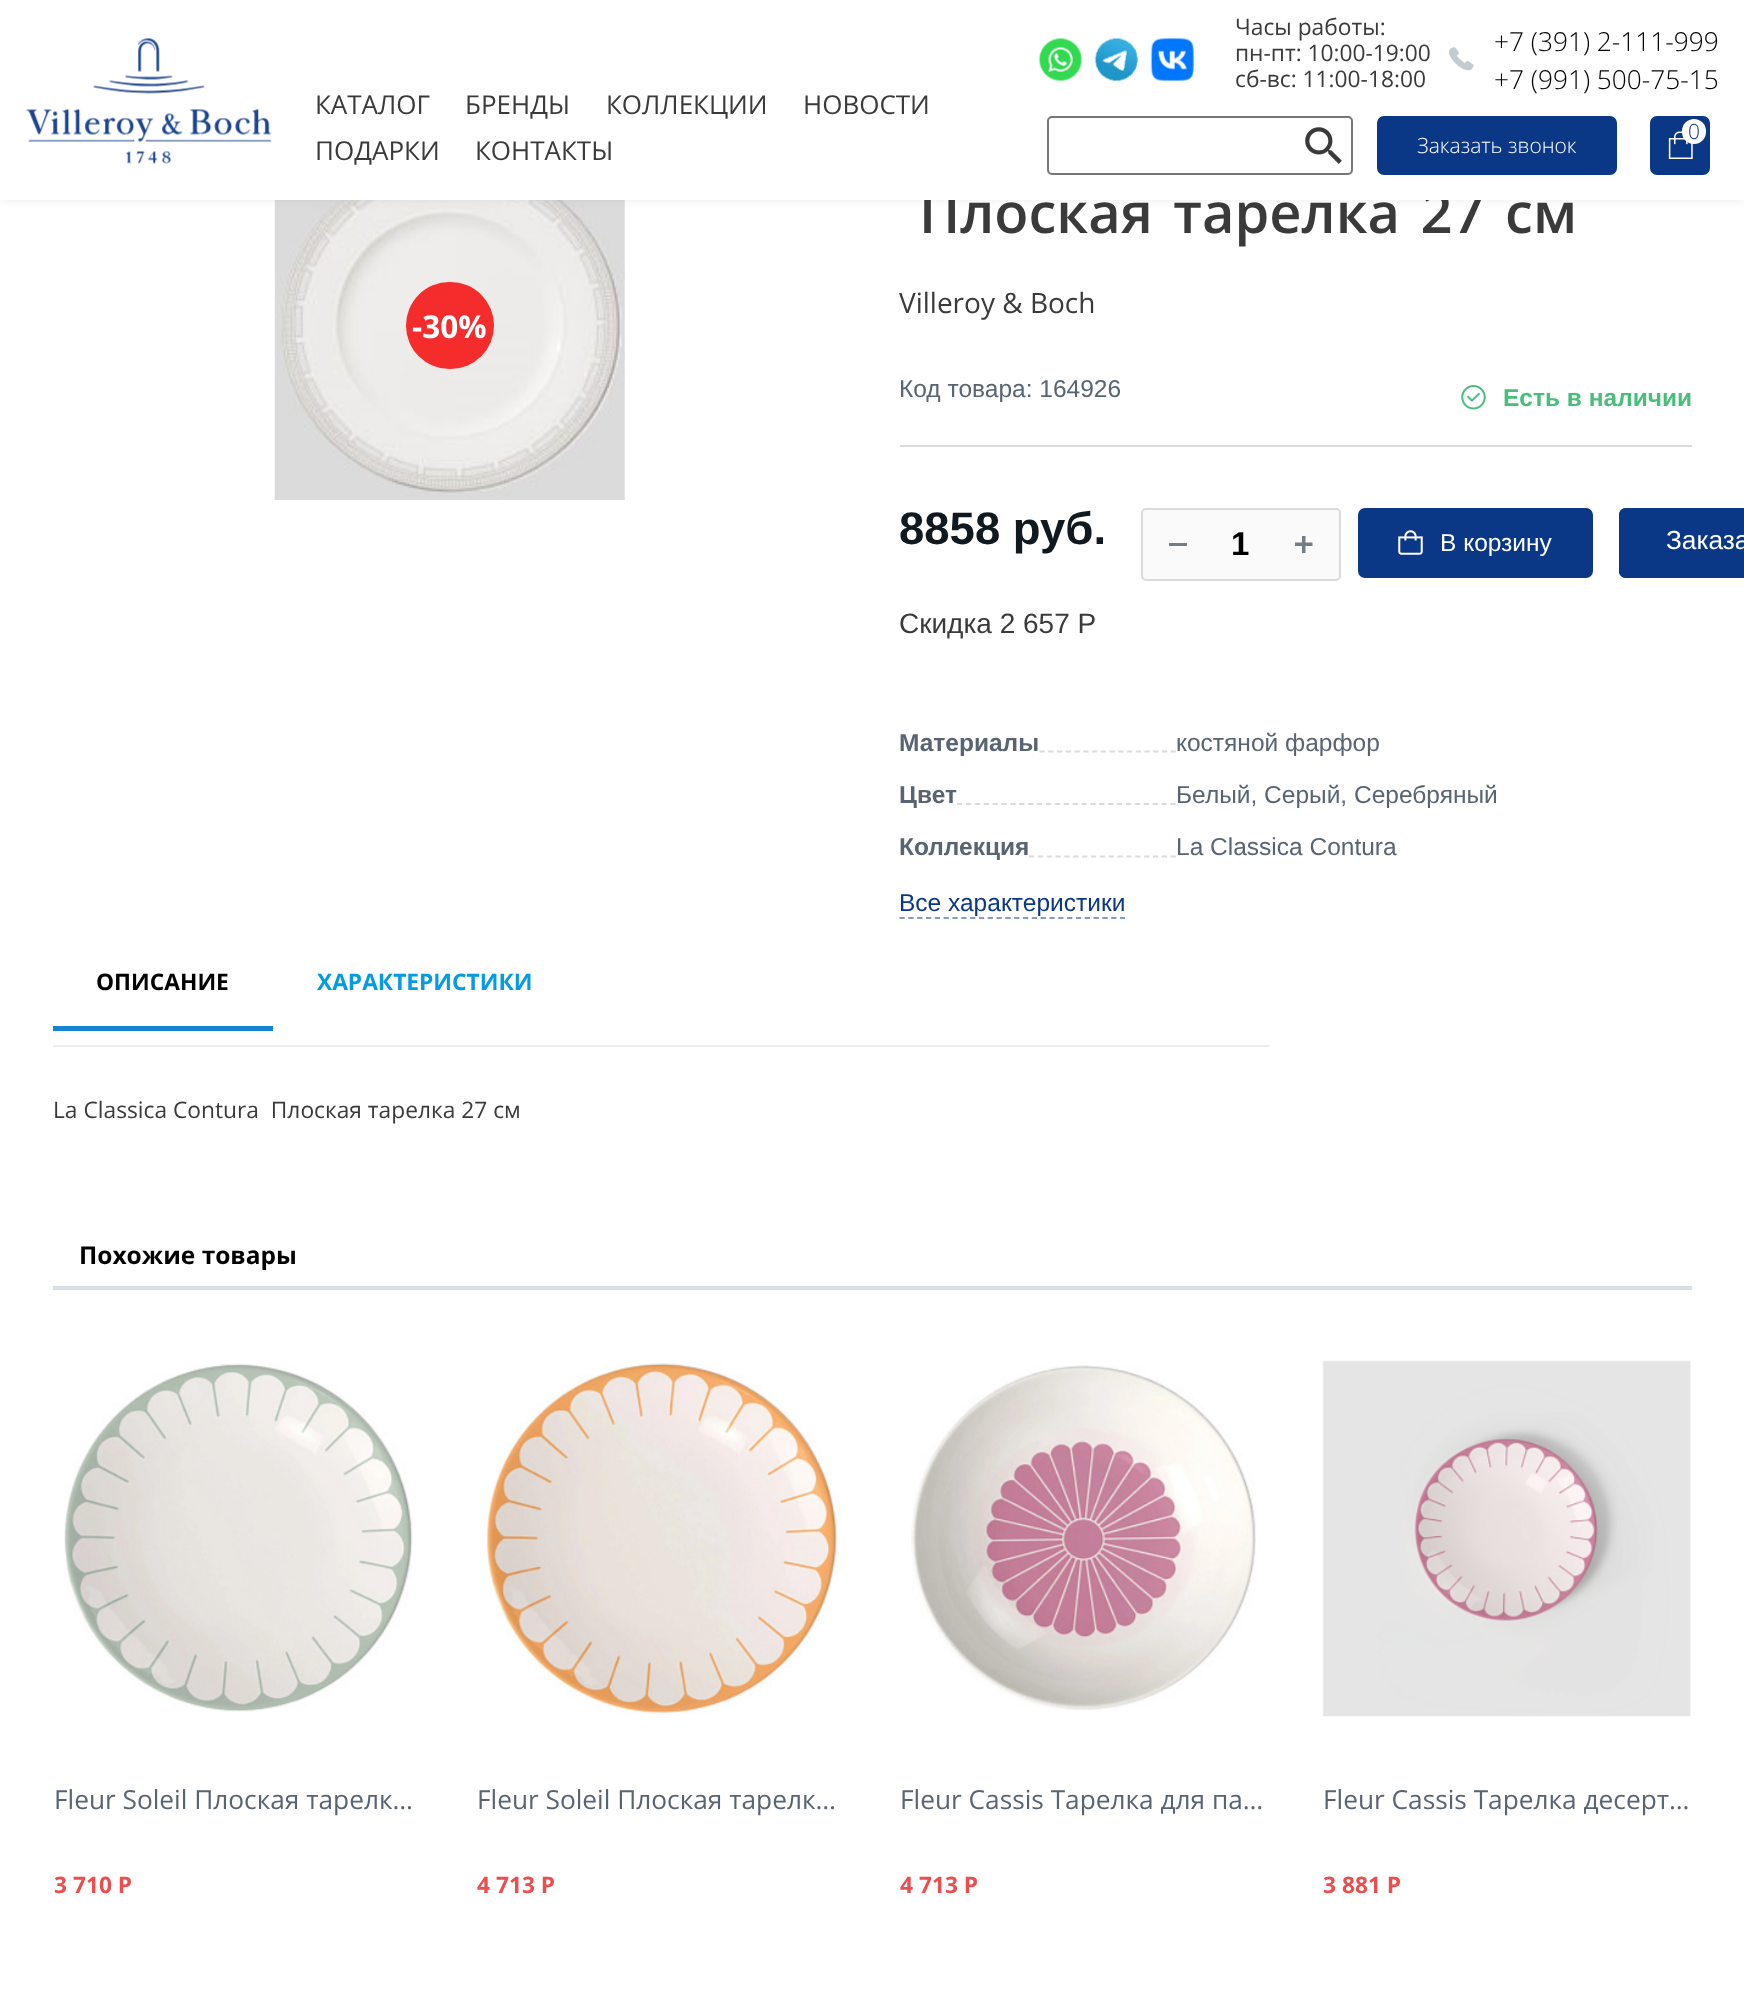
<svg xmlns="http://www.w3.org/2000/svg" width="1744" height="1998">
	<rect width="100%" height="100%" fill="#FFFFFF" />
	<image x="274" y="200" width="351" height="300" href="assets/img8.png" />
	<rect x="0" y="2" width="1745" height="199" fill="#646464" fill-opacity="0.1" filter="blur(4.5px)" />
	<text x="919" y="233" word-spacing="6" font-family="Open Sans" font-size="56" font-weight="600" fill="#3A3A3A">Плоская тарелка 27 см</text>
	<rect x="0" y="0" width="1744" height="200" fill="#FFFFFF" />
	<image x="26" y="38" width="246" height="126" href="assets/img1.png" />
	<g font-family="Open Sans" font-size="26" fill="#3A3A3A">
		<text x="315" y="114">КАТАЛОГ</text>
		<text x="465" y="114">БРЕНДЫ</text>
		<text x="606" y="114">КОЛЛЕКЦИИ</text>
		<text x="803" y="114">НОВОСТИ</text>
		<text x="315" y="160">ПОДАРКИ</text>
		<text x="475" y="160">КОНТАКТЫ</text>
	</g>
	<image x="1038" y="38" width="44" height="43" href="assets/img2.png" />
	<image x="1094" y="38" width="44" height="43" href="assets/img3.png" />
	<image x="1150" y="38" width="44" height="43" href="assets/img4.png" />
	<g font-family="Open Sans" font-size="22.75" fill="#3A3A3A">
		<text x="1235" y="35">Часы работы:</text>
		<text x="1235" y="61">пн-пт: 10:00-19:00</text>
		<text x="1235" y="87">сб-вс: 11:00-18:00</text>
	</g>
	<image x="1449" y="47" width="25" height="24" href="assets/img5.png" />
	<g font-family="Open Sans" font-size="26.25" font-weight="300" fill="#000000">
		<text x="1494" y="51">+7 (391) 2-111-999</text>
		<text x="1494" y="89">+7 (991) 500-75-15</text>
	</g>
	<rect x="1048" y="117" width="304" height="57" rx="4" fill="none" stroke="#767676" stroke-width="2" />
	<image x="1305" y="127" width="37" height="37" href="assets/img6.png" />
	<rect x="1651" y="117" width="58" height="57" rx="6" fill="#0A3886" stroke="#0A3886" stroke-width="2" />
	<image x="1668" y="131" width="25" height="28" href="assets/img7.png" />
	<rect x="1682" y="119" width="24" height="25" rx="12" fill="#FFFFFF" />
	<text x="1688" y="139" font-family="Open Sans" font-size="21" font-weight="300" fill="#0A3886">0</text>
	<rect x="1378" y="117" width="238" height="57" rx="6" fill="#0A3886" stroke="#0A3886" stroke-width="2" />
	<text x="1417" y="153" font-family="Open Sans" font-size="21" font-weight="300" fill="#FFFFFF">Заказать звонок</text>
	<rect x="406" y="282" width="88" height="87" rx="43.5" fill="#F42C2C" />
	<text x="412" y="338" font-family="Open Sans" font-size="31.5" font-weight="700" fill="#FFFFFF">-30%</text>
	<text x="899" y="313" font-family="Open Sans" font-size="28" fill="#3A3A3A">Villeroy &amp; Boch</text>
	<rect x="900" y="445" width="792" height="2" fill="#D8DCDF" />
	<text x="899" y="397" font-family="Liberation Sans" font-size="24.5" fill="#596472">Код товара: 164926</text>
	<image x="1461" y="385" width="25" height="25" href="assets/img9.png" />
	<text x="1503" y="406" font-family="Liberation Sans" font-size="24.5" font-weight="700" fill="#49BE7B">Есть в наличии</text>
	<text x="899" y="544" font-family="Liberation Sans" font-size="45.5" font-weight="700" fill="#101820">8858 руб.</text>
	<rect x="1142" y="509" width="198" height="71" rx="4" fill="#FAFAFA" stroke="#D8DCDF" stroke-width="2" />
	<rect x="1169" y="543" width="18" height="3" fill="#747C85" />
	<text x="1231" y="555" font-family="Liberation Sans" font-size="33" font-weight="700" fill="#000000">1</text>
	<image x="1295" y="536" width="18" height="17" href="assets/img10.png" />
	<rect x="1359" y="509" width="233" height="68" rx="6" fill="#0A3886" stroke="#0A3886" stroke-width="2" />
	<image x="1398" y="530" width="25" height="25" href="assets/img11.png" />
	<text x="1440" y="551" font-family="Liberation Sans" font-size="24.5" fill="#FFFFFF">В корзину</text>
	<path d="M1626 508H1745V578H1626C1622 578 1619 575 1619 571V515C1619 511 1622 508 1626 508Z" fill="#0A3886" />
	<rect x="1620" y="509" width="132" height="68" rx="6" fill="none" stroke="#0A3886" stroke-width="2" />
	<text x="1666" y="549" font-family="Liberation Sans" font-size="26.25" fill="#FFFFFF">Заказа</text>
	<text x="899" y="633" font-family="Liberation Sans" font-size="28" fill="#3A3A3A">Скидка 2 657 Р</text>
	<text x="899" y="751" font-family="Liberation Sans" font-size="24.5" font-weight="700" fill="#596472">Материалы</text>
	<path d="M1039.5 751.5H1176" fill="none" stroke="#D8DCDF" stroke-width="1.8" stroke-dasharray="5.25 3.5" />
	<text x="1176" y="751" font-family="Liberation Sans" font-size="24.5" fill="#596472">костяной фарфор</text>
	<text x="899" y="803" font-family="Liberation Sans" font-size="24.5" font-weight="700" fill="#596472">Цвет</text>
	<path d="M957 804H1176" fill="none" stroke="#D8DCDF" stroke-width="1.8" stroke-dasharray="5.25 3.64" />
	<text x="1176" y="803" font-family="Liberation Sans" font-size="24.5" fill="#596472">Белый, Серый, Серебряный</text>
	<text x="899" y="855" font-family="Liberation Sans" font-size="24.5" font-weight="700" fill="#596472">Коллекция</text>
	<path d="M1029 856.5H1176" fill="none" stroke="#D8DCDF" stroke-width="1.8" stroke-dasharray="5.25 3.6" />
	<text x="1176" y="855" font-family="Liberation Sans" font-size="24.5" fill="#596472">La Classica Contura</text>
	<text x="899" y="911" font-family="Liberation Sans" font-size="24.5" fill="#0A3886">Все характеристики</text>
	<path d="M899.5 918H1125" fill="none" stroke="#859CC3" stroke-width="1.8" stroke-dasharray="5.25 3.57" />
	<rect x="53" y="1045" width="1216" height="2" fill="#EDEDED" />
	<text x="96" y="990" font-family="Open Sans" font-size="22.75" font-weight="700" fill="#000000">ОПИСАНИЕ</text>
	<rect x="53" y="1026" width="220" height="5" fill="#1485CE" />
	<text x="317" y="990" font-family="Open Sans" font-size="22.75" font-weight="700" fill="#039BE5">ХАРАКТЕРИСТИКИ</text>
	<text x="53" y="1118" font-family="Open Sans" font-size="22.75" fill="#3A3A3A" xml:space="preserve">La Classica Contura  Плоская тарелка 27 см</text>
	<rect x="53" y="1286" width="1639" height="4" fill="#D9DEE6" />
	<text x="79" y="1264" font-family="Open Sans" font-size="24.5" font-weight="700" fill="#000000">Похожие товары</text>
	<image x="64" y="1363" width="349" height="349" href="assets/img12.png" />
	<text x="54" y="1809" font-family="Open Sans" font-size="26.25" fill="#596472">Fleur Soleil Плоская тарелк…</text>
	<text x="54" y="1893" font-family="Open Sans" font-size="22.75" font-weight="700" fill="#EB4E4E">3 710 Р</text>
	<image x="486" y="1363" width="353" height="352" href="assets/img13.png" />
	<text x="477" y="1809" font-family="Open Sans" font-size="26.25" fill="#596472">Fleur Soleil Плоская тарелк…</text>
	<text x="477" y="1893" font-family="Open Sans" font-size="22.75" font-weight="700" fill="#EB4E4E">4 713 Р</text>
	<image x="911" y="1365" width="345" height="346" href="assets/img14.png" />
	<text x="900" y="1809" font-family="Open Sans" font-size="26.25" fill="#596472">Fleur Cassis Тарелка для па…</text>
	<text x="900" y="1893" font-family="Open Sans" font-size="22.75" font-weight="700" fill="#EB4E4E">4 713 Р</text>
	<image x="1322" y="1360" width="369" height="357" href="assets/img15.png" />
	<text x="1323" y="1809" font-family="Open Sans" font-size="26.25" fill="#596472">Fleur Cassis Тарелка десерт…</text>
	<text x="1323" y="1893" font-family="Open Sans" font-size="22.75" font-weight="700" fill="#EB4E4E">3 881 Р</text>
</svg>
